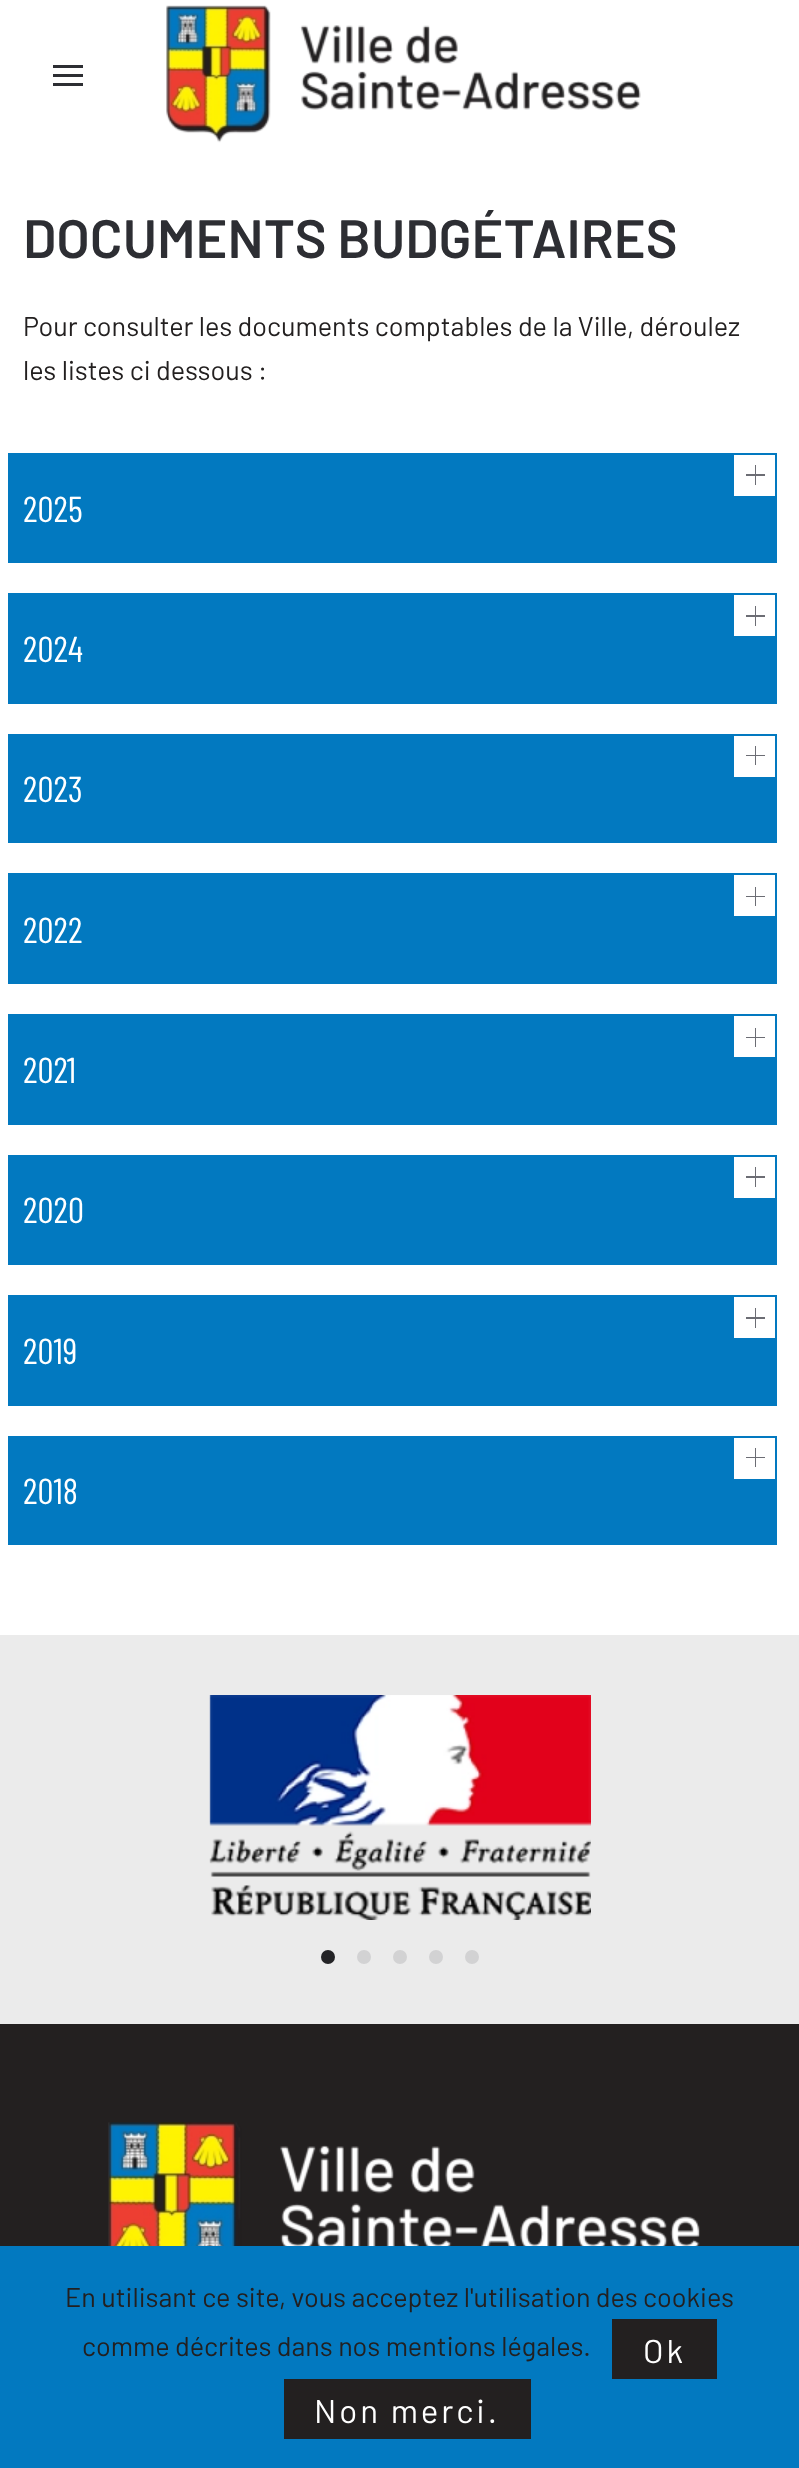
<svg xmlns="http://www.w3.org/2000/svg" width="799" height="2468">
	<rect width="100%" height="100%" fill="#FFFFFF" />
	<rect x="53" y="65" width="30" height="3" fill="#2D2E33" />
	<rect x="53" y="74" width="30" height="3" fill="#2D2E33" />
	<rect x="53" y="83" width="30" height="3" fill="#2D2E33" />
	<image x="166" y="5" width="475" height="138" href="assets/img1.png" />
	<text x="23" y="258" font-family="Barlow" font-size="54" font-weight="600" fill="#2D2E33">DOCUMENTS BUDGÉTAIRES</text>
	<g font-family="Barlow" font-size="27" fill="#232020">
		<text x="23" y="336">Pour consulter les documents comptables de la Ville, déroulez</text>
		<text x="23" y="380">les listes ci dessous :</text>
	</g>
	<rect x="8" y="453" width="769" height="110" fill="#0279C0" />
	<rect x="734" y="455" width="41" height="41" fill="#FFFFFF" />
	<rect x="746" y="474" width="19" height="2" fill="#6C6D74" />
	<rect x="755" y="465" width="1" height="20" fill="#6C6D74" />
	<text x="23" y="522" font-family="Barlow Condensed" font-size="36" fill="#FFFFFF">2025</text>
	<rect x="8" y="593" width="769" height="111" fill="#0279C0" />
	<rect x="734" y="595" width="41" height="41" fill="#FFFFFF" />
	<rect x="746" y="615" width="19" height="2" fill="#6C6D74" />
	<rect x="755" y="606" width="1" height="20" fill="#6C6D74" />
	<text x="23" y="662" font-family="Barlow Condensed" font-size="36" fill="#FFFFFF">2024</text>
	<rect x="8" y="734" width="769" height="109" fill="#0279C0" />
	<rect x="734" y="736" width="41" height="41" fill="#FFFFFF" />
	<rect x="746" y="755" width="19" height="1" fill="#6C6D74" />
	<rect x="755" y="746" width="1" height="19" fill="#6C6D74" />
	<text x="23" y="802" font-family="Barlow Condensed" font-size="36" fill="#FFFFFF">2023</text>
	<rect x="8" y="873" width="769" height="111" fill="#0279C0" />
	<rect x="734" y="875" width="41" height="41" fill="#FFFFFF" />
	<rect x="746" y="896" width="19" height="1" fill="#6C6D74" />
	<rect x="755" y="887" width="1" height="19" fill="#6C6D74" />
	<text x="23" y="943" font-family="Barlow Condensed" font-size="36" fill="#FFFFFF">2022</text>
	<rect x="8" y="1014" width="769" height="111" fill="#0279C0" />
	<rect x="734" y="1016" width="41" height="41" fill="#FFFFFF" />
	<rect x="746" y="1037" width="19" height="1" fill="#6C6D74" />
	<rect x="755" y="1028" width="1" height="19" fill="#6C6D74" />
	<text x="23" y="1083" font-family="Barlow Condensed" font-size="36" fill="#FFFFFF">2021</text>
	<rect x="8" y="1155" width="769" height="110" fill="#0279C0" />
	<rect x="734" y="1157" width="41" height="41" fill="#FFFFFF" />
	<rect x="746" y="1176" width="19" height="2" fill="#6C6D74" />
	<rect x="755" y="1167" width="1" height="20" fill="#6C6D74" />
	<text x="23" y="1223" font-family="Barlow Condensed" font-size="36" fill="#FFFFFF">2020</text>
	<rect x="8" y="1295" width="769" height="111" fill="#0279C0" />
	<rect x="734" y="1297" width="41" height="41" fill="#FFFFFF" />
	<rect x="746" y="1317" width="19" height="2" fill="#6C6D74" />
	<rect x="755" y="1308" width="1" height="20" fill="#6C6D74" />
	<text x="23" y="1364" font-family="Barlow Condensed" font-size="36" fill="#FFFFFF">2019</text>
	<rect x="8" y="1436" width="769" height="109" fill="#0279C0" />
	<rect x="734" y="1438" width="41" height="41" fill="#FFFFFF" />
	<rect x="746" y="1457" width="19" height="1" fill="#6C6D74" />
	<rect x="755" y="1448" width="1" height="19" fill="#6C6D74" />
	<text x="23" y="1504" font-family="Barlow Condensed" font-size="36" fill="#FFFFFF">2018</text>
	<rect x="0" y="1635" width="799" height="389" fill="#EBEBEB" />
	<image x="209" y="1695" width="382" height="225" href="assets/img2.png" />
	<circle cx="328" cy="1957" r="7" fill="#242427" />
	<circle cx="364" cy="1957" r="7" fill="#D2D2D3" />
	<circle cx="400" cy="1957" r="7" fill="#D2D2D3" />
	<circle cx="436" cy="1957" r="7" fill="#D2D2D3" />
	<circle cx="472" cy="1957" r="7" fill="#D2D2D3" />
	<rect x="0" y="2024" width="799" height="222" fill="#232020" />
	<image x="108" y="2122" width="592" height="124" href="assets/img3.png" />
	<rect x="0" y="2246" width="799" height="222" fill="#0279C0" />
	<g font-family="Barlow" font-size="27" fill="#232020">
		<text x="65" y="2307">En utilisant ce site, vous acceptez l'utilisation des cookies</text>
		<text x="82" y="2356">comme décrites dans nos mentions légales.</text>
	</g>
	<rect x="612" y="2319" width="105" height="60" fill="#232020" />
	<text x="643" y="2363" font-family="Barlow" font-size="33" letter-spacing="3" fill="#FFFFFF">Ok</text>
	<rect x="284" y="2379" width="247" height="60" fill="#232020" />
	<text x="314" y="2423" font-family="Barlow" font-size="33" letter-spacing="3" fill="#FFFFFF">Non merci.</text>
</svg>
